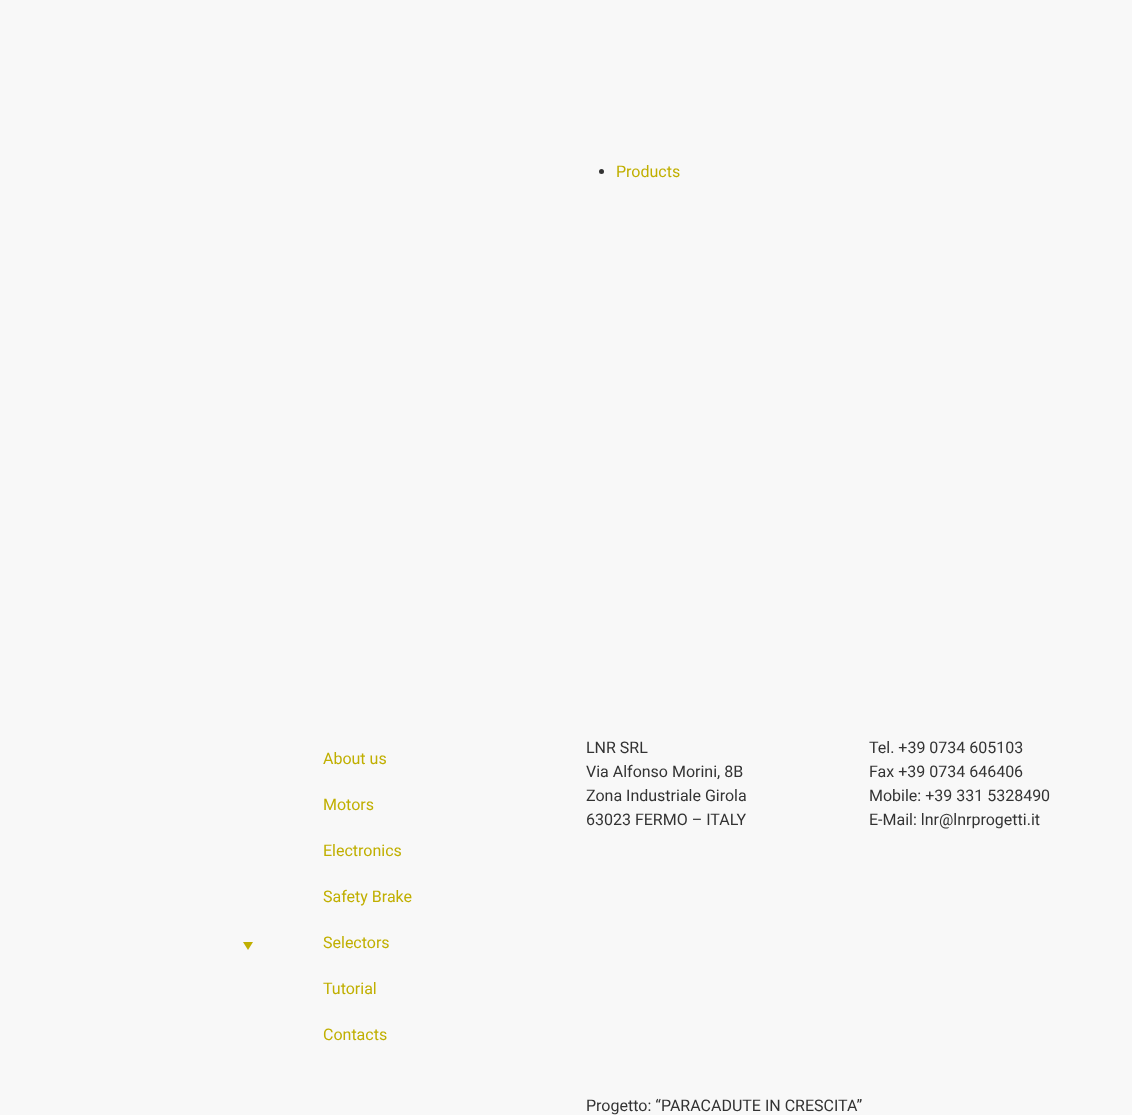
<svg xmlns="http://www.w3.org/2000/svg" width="1132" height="1115">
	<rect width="100%" height="100%" fill="#F8F8F8" />
	<circle cx="601.5" cy="171.5" r="2.5" fill="#333333" />
	<text x="616" y="177" font-family="Roboto" font-size="16" fill="#C0AF00">Products</text>
	<path d="M243 942H253L248 950Z" fill="#C0AF00" />
	<g font-family="Roboto" font-size="16" fill="#C0AF00">
		<text x="323" y="764">About us</text>
		<text x="323" y="810">Motors</text>
		<text x="323" y="856">Electronics</text>
		<text x="323" y="902">Safety Brake</text>
		<text x="323" y="948">Selectors</text>
		<text x="323" y="994">Tutorial</text>
		<text x="323" y="1040">Contacts</text>
	</g>
	<g font-family="Roboto" font-size="16" fill="#333333">
		<text x="586" y="753">LNR SRL</text>
		<text x="586" y="777">Via Alfonso Morini, 8B</text>
		<text x="586" y="801">Zona Industriale Girola</text>
		<text x="586" y="825">63023 FERMO – ITALY</text>
		<text x="869" y="753">Tel. +39 0734 605103</text>
		<text x="869" y="777">Fax +39 0734 646406</text>
		<text x="869" y="801">Mobile: +39 331 5328490</text>
		<text x="869" y="825">E-Mail: lnr@lnrprogetti.it</text>
		<text x="586" y="1111">Progetto: “PARACADUTE IN CRESCITA”</text>
	</g>
</svg>
